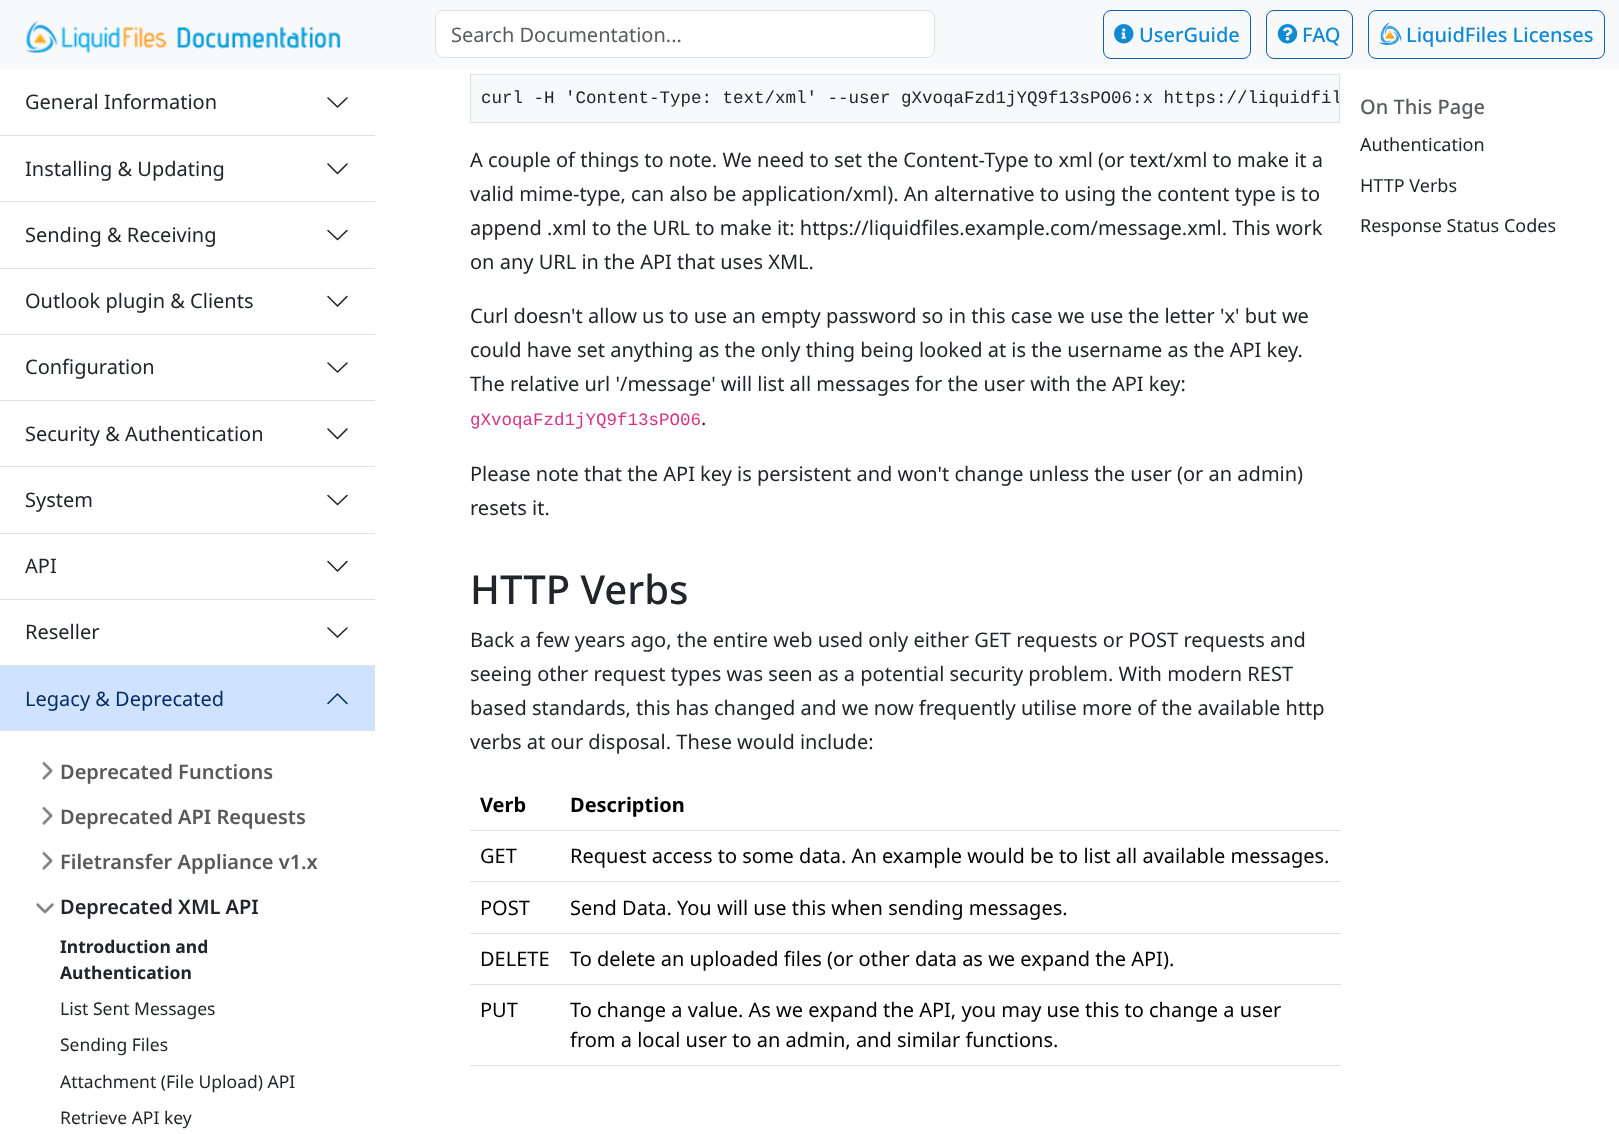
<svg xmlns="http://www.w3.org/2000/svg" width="1619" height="1134">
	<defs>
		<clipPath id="clip1"><rect x="471" y="75" width="868" height="46" /></clipPath>
	</defs>
	<rect width="100%" height="100%" fill="#FFFFFF" />
	<rect x="0" y="0" width="1619" height="69" fill="#F8F9FA" />
	<image x="26" y="21" width="315" height="32" href="assets/img1.png" />
	<rect x="436" y="11" width="498" height="45" rx="6" fill="#FFFFFF" />
	<rect x="435.5" y="10.5" width="499" height="47" rx="7.5" fill="none" stroke="#DEE2E6" />
	<text x="451" y="42" font-family="Noto Sans" font-size="20" fill="#595C5F">Search Documentation...</text>
	<rect x="1103.5" y="10.5" width="147" height="48" rx="7.5" fill="none" stroke="#115EAE" />
	<image x="1114" y="24" width="20" height="20" href="assets/img2.png" />
	<text x="1139" y="42" font-family="Noto Sans" font-size="20" font-weight="500" fill="#118AD4">UserGuide</text>
	<rect x="1266.5" y="10.5" width="86" height="48" rx="7.5" fill="none" stroke="#115EAE" />
	<image x="1277" y="24" width="21" height="20" href="assets/img3.png" />
	<text x="1302" y="42" font-family="Noto Sans" font-size="20" font-weight="500" fill="#118AD4">FAQ</text>
	<rect x="1368.5" y="10.5" width="236" height="48" rx="7.5" fill="none" stroke="#115EAE" />
	<image x="1378" y="22" width="24" height="23" href="assets/img4.png" />
	<text x="1406" y="42" font-family="Noto Sans" font-size="20" font-weight="500" fill="#118AD4">LiquidFiles Licenses</text>
	<rect x="0" y="135" width="375" height="1" fill="#DEE2E6" />
	<text x="25" y="109" font-family="Noto Sans" font-size="20" fill="#212529">General Information</text>
	<path d="M328 98L337.5 107L347 98" fill="none" stroke="#212529" stroke-width="1.6" stroke-linecap="round" stroke-linejoin="round" />
	<rect x="0" y="201" width="375" height="1" fill="#DEE2E6" />
	<text x="25" y="176" font-family="Noto Sans" font-size="20" fill="#212529">Installing &amp; Updating</text>
	<path d="M328 164L337.5 173.5L347 164" fill="none" stroke="#212529" stroke-width="1.6" stroke-linecap="round" stroke-linejoin="round" />
	<rect x="0" y="268" width="375" height="1" fill="#DEE2E6" />
	<text x="25" y="242" font-family="Noto Sans" font-size="20" fill="#212529">Sending &amp; Receiving</text>
	<path d="M328 230.5L337.5 239.5L347 230.5" fill="none" stroke="#212529" stroke-width="1.6" stroke-linecap="round" stroke-linejoin="round" />
	<rect x="0" y="334" width="375" height="1" fill="#DEE2E6" />
	<text x="25" y="308" font-family="Noto Sans" font-size="20" fill="#212529">Outlook plugin &amp; Clients</text>
	<path d="M328 296.5L337.5 306L347 296.5" fill="none" stroke="#212529" stroke-width="1.6" stroke-linecap="round" stroke-linejoin="round" />
	<rect x="0" y="400" width="375" height="1" fill="#DEE2E6" />
	<text x="25" y="374" font-family="Noto Sans" font-size="20" fill="#212529">Configuration</text>
	<path d="M328 363L337.5 372L347 363" fill="none" stroke="#212529" stroke-width="1.6" stroke-linecap="round" stroke-linejoin="round" />
	<rect x="0" y="466" width="375" height="1" fill="#DEE2E6" />
	<text x="25" y="441" font-family="Noto Sans" font-size="20" fill="#212529">Security &amp; Authentication</text>
	<path d="M328 429L337.5 438.5L347 429" fill="none" stroke="#212529" stroke-width="1.6" stroke-linecap="round" stroke-linejoin="round" />
	<rect x="0" y="533" width="375" height="1" fill="#DEE2E6" />
	<text x="25" y="507" font-family="Noto Sans" font-size="20" fill="#212529">System</text>
	<path d="M328 495.5L337.5 504.5L347 495.5" fill="none" stroke="#212529" stroke-width="1.6" stroke-linecap="round" stroke-linejoin="round" />
	<rect x="0" y="599" width="375" height="1" fill="#DEE2E6" />
	<text x="25" y="573" font-family="Noto Sans" font-size="20" fill="#212529">API</text>
	<path d="M328 561.5L337.5 571L347 561.5" fill="none" stroke="#212529" stroke-width="1.6" stroke-linecap="round" stroke-linejoin="round" />
	<rect x="0" y="665" width="375" height="1" fill="#DEE2E6" />
	<text x="25" y="639" font-family="Noto Sans" font-size="20" fill="#212529">Reseller</text>
	<path d="M328 628L337.5 637L347 628" fill="none" stroke="#212529" stroke-width="1.6" stroke-linecap="round" stroke-linejoin="round" />
	<rect x="0" y="666" width="375" height="64" fill="#CFE2FF" />
	<rect x="0" y="730" width="375" height="1" fill="#DEE2E6" />
	<text x="25" y="706" font-family="Noto Sans" font-size="20" fill="#052C65">Legacy &amp; Deprecated</text>
	<path d="M347 703.5L337.5 694L328 703.5" fill="none" stroke="#052C65" stroke-width="1.6" stroke-linecap="round" stroke-linejoin="round" />
	<image x="42" y="761" width="11" height="19" href="assets/img5.png" />
	<text x="60" y="779" font-family="Noto Sans" font-size="20" font-weight="600" fill="#595959">Deprecated Functions</text>
	<image x="42" y="806" width="11" height="19" href="assets/img5.png" />
	<text x="60" y="824" font-family="Noto Sans" font-size="20" font-weight="600" fill="#595959">Deprecated API Requests</text>
	<image x="42" y="851" width="11" height="19" href="assets/img5.png" />
	<text x="60" y="869" font-family="Noto Sans" font-size="20" font-weight="600" fill="#595959">Filetransfer Appliance v1.x</text>
	<image x="36" y="902" width="18" height="12" href="assets/img6.png" />
	<text x="60" y="914" font-family="Noto Sans" font-size="20" font-weight="600" fill="#212529">Deprecated XML API</text>
	<g font-family="Noto Sans" font-size="17.5" font-weight="700" fill="#212529">
		<text x="60" y="953">Introduction and</text>
		<text x="60" y="979">Authentication</text>
	</g>
	<g font-family="Noto Sans" font-size="17.5" fill="#212529">
		<text x="60" y="1015">List Sent Messages</text>
		<text x="60" y="1051">Sending Files</text>
		<text x="60" y="1088">Attachment (File Upload) API</text>
		<text x="60" y="1124">Retrieve API key</text>
	</g>
	<rect x="470.5" y="74.5" width="869" height="48" fill="#F8F9FA" stroke="#DEE2E6" />
	<text x="481" y="103" font-family="Liberation Mono" font-size="17.5" fill="#212529">curl -H 'Content-Type: text/xml' --user gXvoqaFzd1jYQ9f13sPO06</text>
	<g clip-path="url(#clip1)">
		<text x="1132" y="103" font-family="Liberation Mono" font-size="17.5" fill="#212529">:x https://liquidfil</text>
	</g>
	<g font-family="Noto Sans" font-size="20" fill="#212529">
		<text x="470" y="167">A couple of things to note. We need to set the Content-Type to xml (or text/xml to make it a</text>
		<text x="470" y="201">valid mime-type, can also be application/xml). An alternative to using the content type is to</text>
		<text x="470" y="235">append .xml to the URL to make it: https://liquidfiles.example.com/message.xml. This work</text>
		<text x="470" y="269">on any URL in the API that uses XML.</text>
		<text x="470" y="323">Curl doesn't allow us to use an empty password so in this case we use the letter 'x' but we</text>
		<text x="470" y="357">could have set anything as the only thing being looked at is the username as the API key.</text>
		<text x="470" y="391">The relative url '/message' will list all messages for the user with the API key:</text>
	</g>
	<text x="470" y="425" font-family="Liberation Mono" font-size="17.5" fill="#D63384">gXvoqaFzd1jYQ9f13sPO06</text>
	<g font-family="Noto Sans" font-size="20" fill="#212529">
		<text x="701" y="425">.</text>
		<text x="470" y="481">Please note that the API key is persistent and won't change unless the user (or an admin)</text>
		<text x="470" y="515">resets it.</text>
	</g>
	<text x="470" y="604" font-family="Noto Sans" font-size="40" font-weight="500" fill="#212529">HTTP Verbs</text>
	<g font-family="Noto Sans" font-size="20" fill="#212529">
		<text x="470" y="647">Back a few years ago, the entire web used only either GET requests or POST requests and</text>
		<text x="470" y="681">seeing other request types was seen as a potential security problem. With modern REST</text>
		<text x="470" y="715">based standards, this has changed and we now frequently utilise more of the available http</text>
		<text x="470" y="749">verbs at our disposal. These would include:</text>
	</g>
	<text x="480" y="812" font-family="Noto Sans" font-size="20" font-weight="700" fill="#000000">Verb</text>
	<rect x="470" y="830" width="871" height="1" fill="#DEE2E6" />
	<text x="570" y="812" font-family="Noto Sans" font-size="20" font-weight="700" fill="#000000">Description</text>
	<text x="480" y="863" font-family="Noto Sans" font-size="20" fill="#000000">GET</text>
	<rect x="470" y="881" width="871" height="1" fill="#DEE2E6" />
	<g font-family="Noto Sans" font-size="20" fill="#000000">
		<text x="570" y="863">Request access to some data. An example would be to list all available messages.</text>
		<text x="480" y="915">POST</text>
	</g>
	<rect x="470" y="933" width="871" height="1" fill="#DEE2E6" />
	<g font-family="Noto Sans" font-size="20" fill="#000000">
		<text x="570" y="915">Send Data. You will use this when sending messages.</text>
		<text x="480" y="966">DELETE</text>
	</g>
	<rect x="470" y="984" width="871" height="1" fill="#DEE2E6" />
	<g font-family="Noto Sans" font-size="20" fill="#000000">
		<text x="570" y="966">To delete an uploaded files (or other data as we expand the API).</text>
		<text x="480" y="1017">PUT</text>
	</g>
	<rect x="470" y="1065" width="871" height="1" fill="#DEE2E6" />
	<g font-family="Noto Sans" font-size="20" fill="#000000">
		<text x="570" y="1017">To change a value. As we expand the API, you may use this to change a user</text>
		<text x="570" y="1047">from a local user to an admin, and similar functions.</text>
	</g>
	<text x="1360" y="114" font-family="Noto Sans" font-size="20" font-weight="500" fill="#595C5F">On This Page</text>
	<g font-family="Noto Sans" font-size="18" fill="#212529">
		<text x="1360" y="151">Authentication</text>
		<text x="1360" y="192">HTTP Verbs</text>
		<text x="1360" y="232">Response Status Codes</text>
	</g>
</svg>
